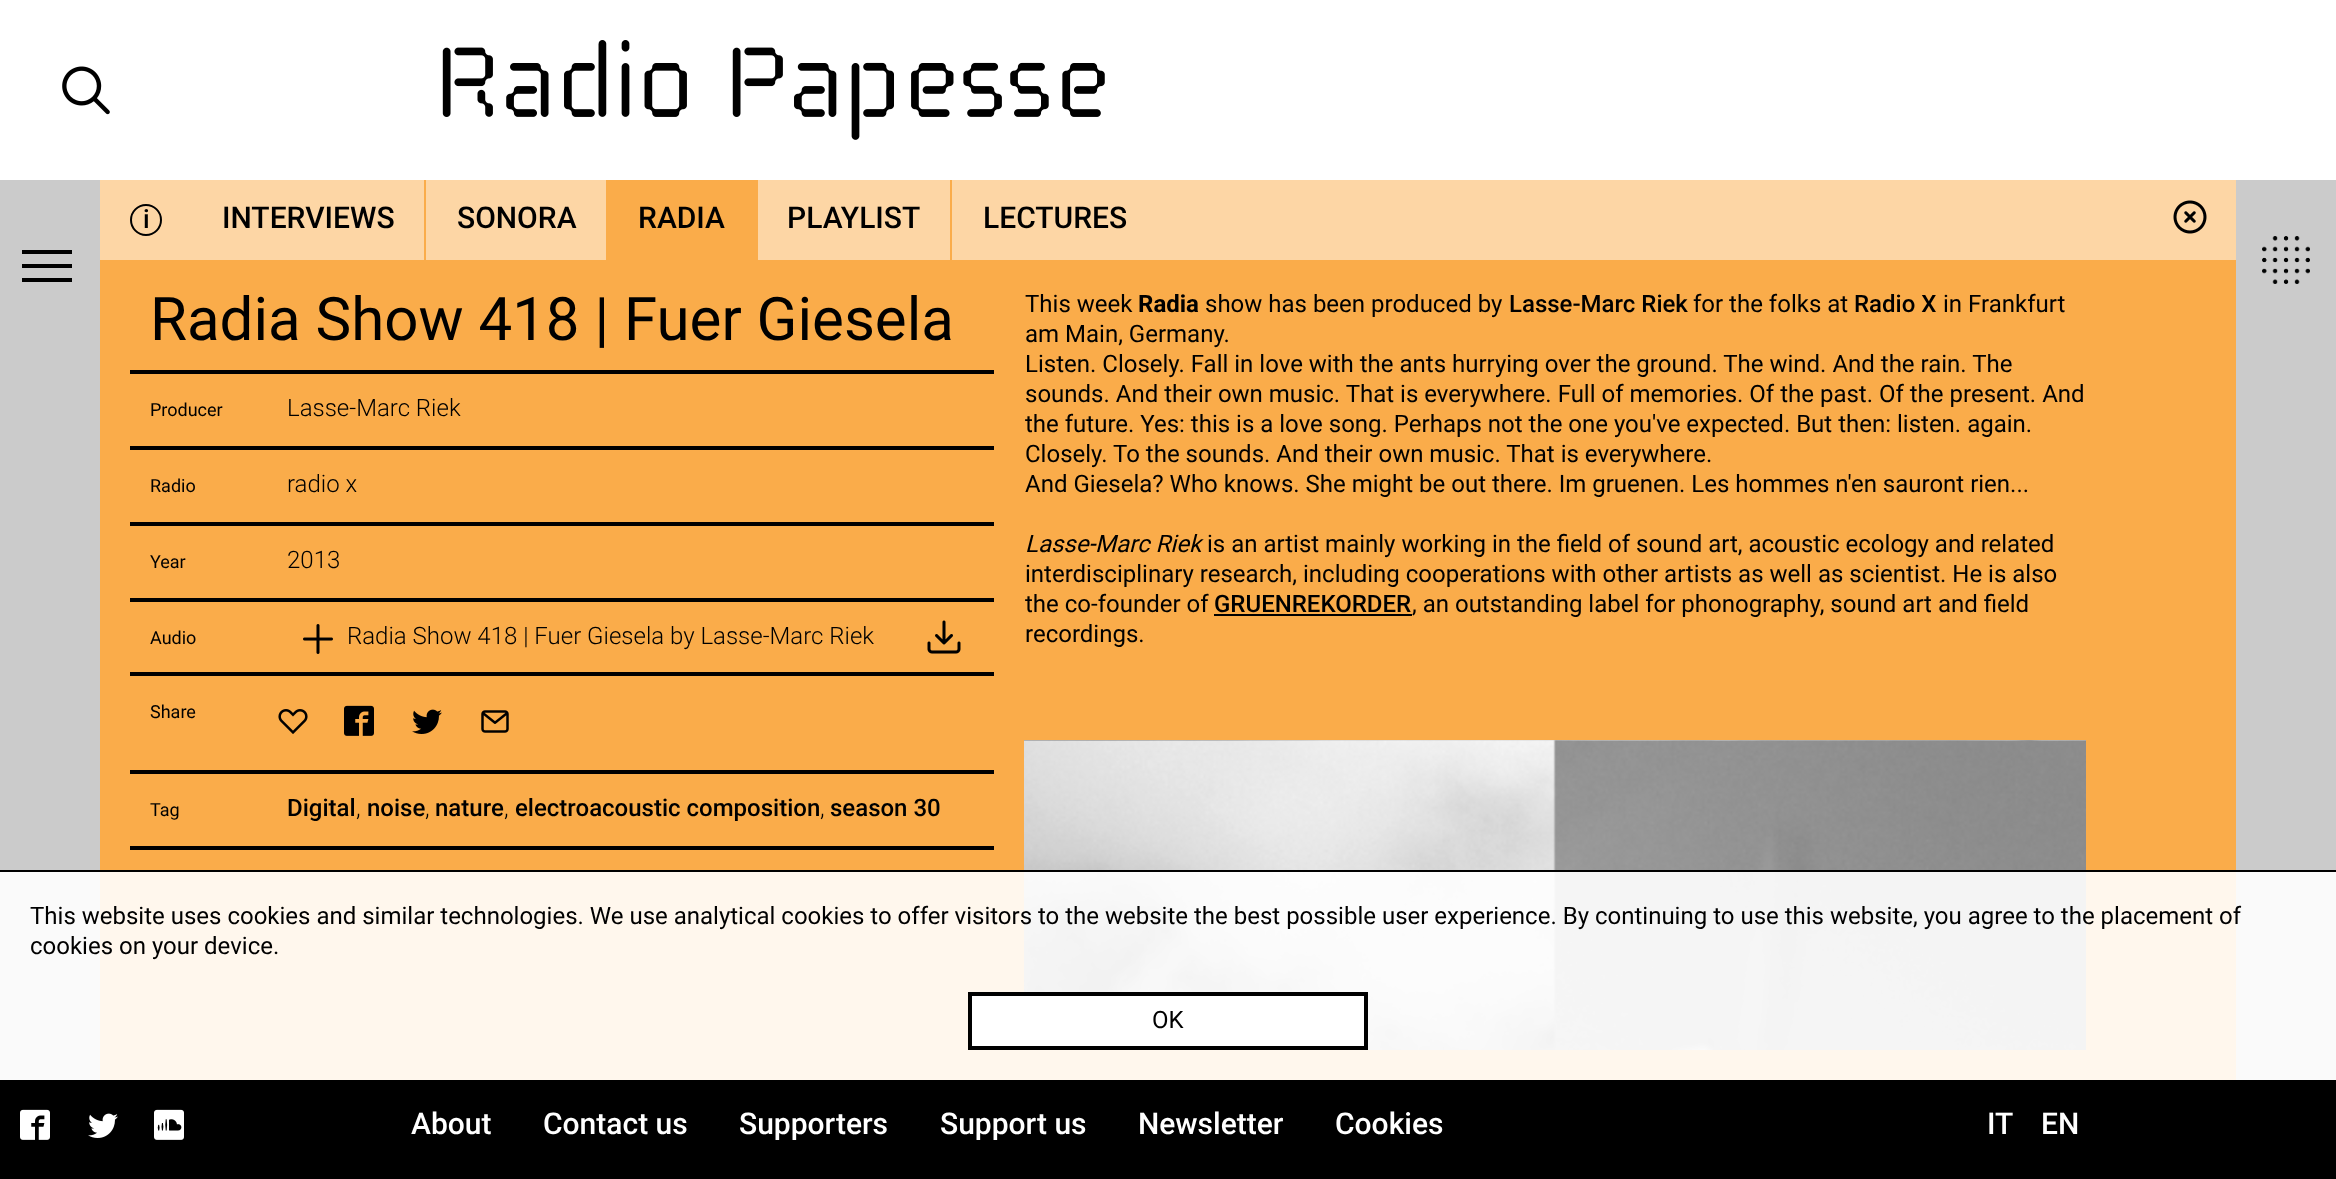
<svg xmlns="http://www.w3.org/2000/svg" width="2336" height="1179">
	<rect width="100%" height="100%" fill="#FAAC4A" />
	<rect x="0" y="0" width="2336" height="180" fill="#FFFFFF" />
	<image x="62" y="66" width="48" height="49" href="assets/img1.png" />
	<image x="442" y="40" width="663" height="100" href="assets/img2.png" />
	<rect x="0" y="180" width="100" height="900" fill="#CBCBCB" />
	<rect x="22" y="250" width="50" height="4" fill="#000000" />
	<rect x="22" y="264" width="50" height="4" fill="#000000" />
	<rect x="22" y="278" width="50" height="4" fill="#000000" />
	<rect x="100" y="180" width="2136" height="80" fill="#FDD6A5" />
	<circle cx="146" cy="220" r="15" fill="none" stroke="#000000" stroke-width="2" />
	<text x="143" y="228" font-family="Roboto" font-size="26" font-weight="500" fill="#000000">i</text>
	<text x="222" y="228" font-family="Roboto" font-size="30" font-weight="500" fill="#000000">INTERVIEWS</text>
	<rect x="424" y="180" width="2" height="80" fill="#FAAC4A" />
	<text x="457" y="228" font-family="Roboto" font-size="30" font-weight="500" fill="#000000">SONORA</text>
	<rect x="606" y="180" width="152" height="80" fill="#FAAC4A" />
	<g font-family="Roboto" font-size="30" font-weight="500" fill="#000000">
		<text x="638" y="228">RADIA</text>
		<text x="787" y="228">PLAYLIST</text>
	</g>
	<rect x="950" y="180" width="2" height="80" fill="#FAAC4A" />
	<text x="983" y="228" font-family="Roboto" font-size="30" font-weight="500" fill="#000000">LECTURES</text>
	<image x="2173" y="200" width="34" height="34" href="assets/img3.png" />
	<rect x="130" y="370" width="864" height="4" fill="#000000" />
	<text x="150" y="340" font-family="Roboto" font-size="60" fill="#000000">Radia Show 418 | Fuer Giesela</text>
	<rect x="130" y="446" width="864" height="4" fill="#000000" />
	<text x="150" y="416" font-family="Roboto" font-size="18" fill="#000000">Producer</text>
	<text x="287" y="416" font-family="Roboto" font-size="24" font-weight="300" fill="#000000">Lasse-Marc Riek</text>
	<rect x="130" y="522" width="864" height="4" fill="#000000" />
	<text x="150" y="492" font-family="Roboto" font-size="18" fill="#000000">Radio</text>
	<text x="287" y="492" font-family="Roboto" font-size="24" font-weight="300" fill="#000000">radio x</text>
	<rect x="130" y="598" width="864" height="4" fill="#000000" />
	<text x="150" y="568" font-family="Roboto" font-size="18" fill="#000000">Year</text>
	<text x="287" y="568" font-family="Roboto" font-size="24" font-weight="300" fill="#000000">2013</text>
	<rect x="130" y="672" width="864" height="4" fill="#000000" />
	<text x="150" y="644" font-family="Roboto" font-size="18" fill="#000000">Audio</text>
	<image x="303" y="624" width="30" height="30" href="assets/img4.png" />
	<text x="347" y="644" font-family="Roboto" font-size="24" font-weight="300" fill="#000000">Radia Show 418 | Fuer Giesela by Lasse-Marc Riek</text>
	<image x="927" y="620" width="34" height="34" href="assets/img5.png" />
	<rect x="130" y="770" width="864" height="4" fill="#000000" />
	<text x="150" y="718" font-family="Roboto" font-size="18" fill="#000000">Share</text>
	<image x="278" y="709" width="30" height="25" href="assets/img6.png" />
	<image x="344" y="705" width="30" height="31" href="assets/img7.png" />
	<image x="412" y="709" width="30" height="25" href="assets/img8.png" />
	<image x="481" y="710" width="28" height="23" href="assets/img9.png" />
	<rect x="130" y="846" width="864" height="4" fill="#000000" />
	<text x="150" y="816" font-family="Roboto" font-size="18" fill="#000000">Tag</text>
	<text x="287" y="816" font-family="Roboto" font-size="24" font-weight="500" fill="#000000">Digital</text>
	<text x="356" y="816" font-family="Roboto" font-size="24" font-weight="300" fill="#000000">,</text>
	<text x="367" y="816" font-family="Roboto" font-size="24" font-weight="500" fill="#000000">noise</text>
	<text x="425" y="816" font-family="Roboto" font-size="24" font-weight="300" fill="#000000">,</text>
	<text x="435" y="816" font-family="Roboto" font-size="24" font-weight="500" fill="#000000">nature</text>
	<text x="504" y="816" font-family="Roboto" font-size="24" font-weight="300" fill="#000000">,</text>
	<text x="515" y="816" font-family="Roboto" font-size="24" font-weight="500" fill="#000000">electroacoustic composition</text>
	<text x="820" y="816" font-family="Roboto" font-size="24" font-weight="300" fill="#000000">,</text>
	<text x="830" y="816" font-family="Roboto" font-size="24" font-weight="500" fill="#000000">season 30</text>
	<text x="1025" y="312" font-family="Roboto" font-size="24" fill="#000000">This week</text>
	<text x="1138" y="312" font-family="Roboto" font-size="24" font-weight="700" fill="#000000">Radia</text>
	<text x="1205" y="312" font-family="Roboto" font-size="24" fill="#000000">show has been produced by</text>
	<text x="1509" y="312" font-family="Roboto" font-size="24" font-weight="500" fill="#000000">Lasse-Marc Riek</text>
	<text x="1693" y="312" font-family="Roboto" font-size="24" fill="#000000">for the folks at</text>
	<text x="1854" y="312" font-family="Roboto" font-size="24" font-weight="500" fill="#000000">Radio X</text>
	<g font-family="Roboto" font-size="24" fill="#000000">
		<text x="1943" y="312">in Frankfurt</text>
		<text x="1025" y="342">am Main, Germany.</text>
		<text x="1025" y="372">Listen. Closely. Fall in love with the ants hurrying over the ground. The wind. And the rain. The</text>
		<text x="1025" y="402">sounds. And their own music. That is everywhere. Full of memories. Of the past. Of the present. And</text>
		<text x="1025" y="432">the future. Yes: this is a love song. Perhaps not the one you've expected. But then: listen. again.</text>
		<text x="1025" y="462">Closely. To the sounds. And their own music. That is everywhere.</text>
		<text x="1025" y="492">And Giesela? Who knows. She might be out there. Im gruenen. Les hommes n'en sauront rien...</text>
	</g>
	<text x="1025" y="552" font-family="Roboto" font-size="24" font-style="italic" fill="#000000">Lasse-Marc Riek</text>
	<g font-family="Roboto" font-size="24" fill="#000000">
		<text x="1207" y="552">is an artist mainly working in the field of sound art, acoustic ecology and related</text>
		<text x="1025" y="582">interdisciplinary research, including cooperations with other artists as well as scientist. He is also</text>
		<text x="1025" y="612">the co-founder of</text>
	</g>
	<text x="1214" y="612" font-family="Roboto" font-size="24" font-weight="500" fill="#000000">GRUENREKORDER</text>
	<rect x="1214" y="614" width="198" height="2" fill="#000000" />
	<g font-family="Roboto" font-size="24" fill="#000000">
		<text x="1412" y="612">, an outstanding label for phonography, sound art and field</text>
		<text x="1025" y="642">recordings.</text>
	</g>
	<image x="1024" y="740" width="1062" height="310" href="assets/img10.png" />
	<rect x="2236" y="180" width="100" height="900" fill="#CBCBCB" />
	<image x="2262" y="236" width="48" height="48" href="assets/img11.png" />
	<rect x="0" y="1080" width="2336" height="99" fill="#000000" />
	<image x="20" y="1109" width="30" height="31" href="assets/img12.png" />
	<image x="88" y="1113" width="30" height="25" href="assets/img13.png" />
	<image x="154" y="1109" width="30" height="31" href="assets/img14.png" />
	<g font-family="Roboto" font-size="30" font-weight="500" fill="#FFFFFF">
		<text x="411" y="1134">About</text>
		<text x="543" y="1134">Contact us</text>
		<text x="739" y="1134">Supporters</text>
		<text x="940" y="1134">Support us</text>
		<text x="1138" y="1134">Newsletter</text>
		<text x="1335" y="1134">Cookies</text>
		<text x="1987" y="1134">IT</text>
		<text x="2041" y="1134">EN</text>
	</g>
	<rect x="0" y="872" width="2336" height="208" fill="#FFFFFF" fill-opacity="0.9" />
	<rect x="0" y="870" width="2336" height="2" fill="#000000" />
	<g font-family="Roboto" font-size="24" fill="#000000">
		<text x="30" y="924">This website uses cookies and similar technologies. We use analytical cookies to offer visitors to the website the best possible user experience. By continuing to use this website, you agree to the placement of</text>
		<text x="30" y="954">cookies on your device.</text>
	</g>
	<rect x="970" y="994" width="396" height="54" fill="#FFFFFF" stroke="#000000" stroke-width="4" />
	<text x="1152" y="1028" font-family="Roboto" font-size="24" fill="#000000">OK</text>
</svg>
